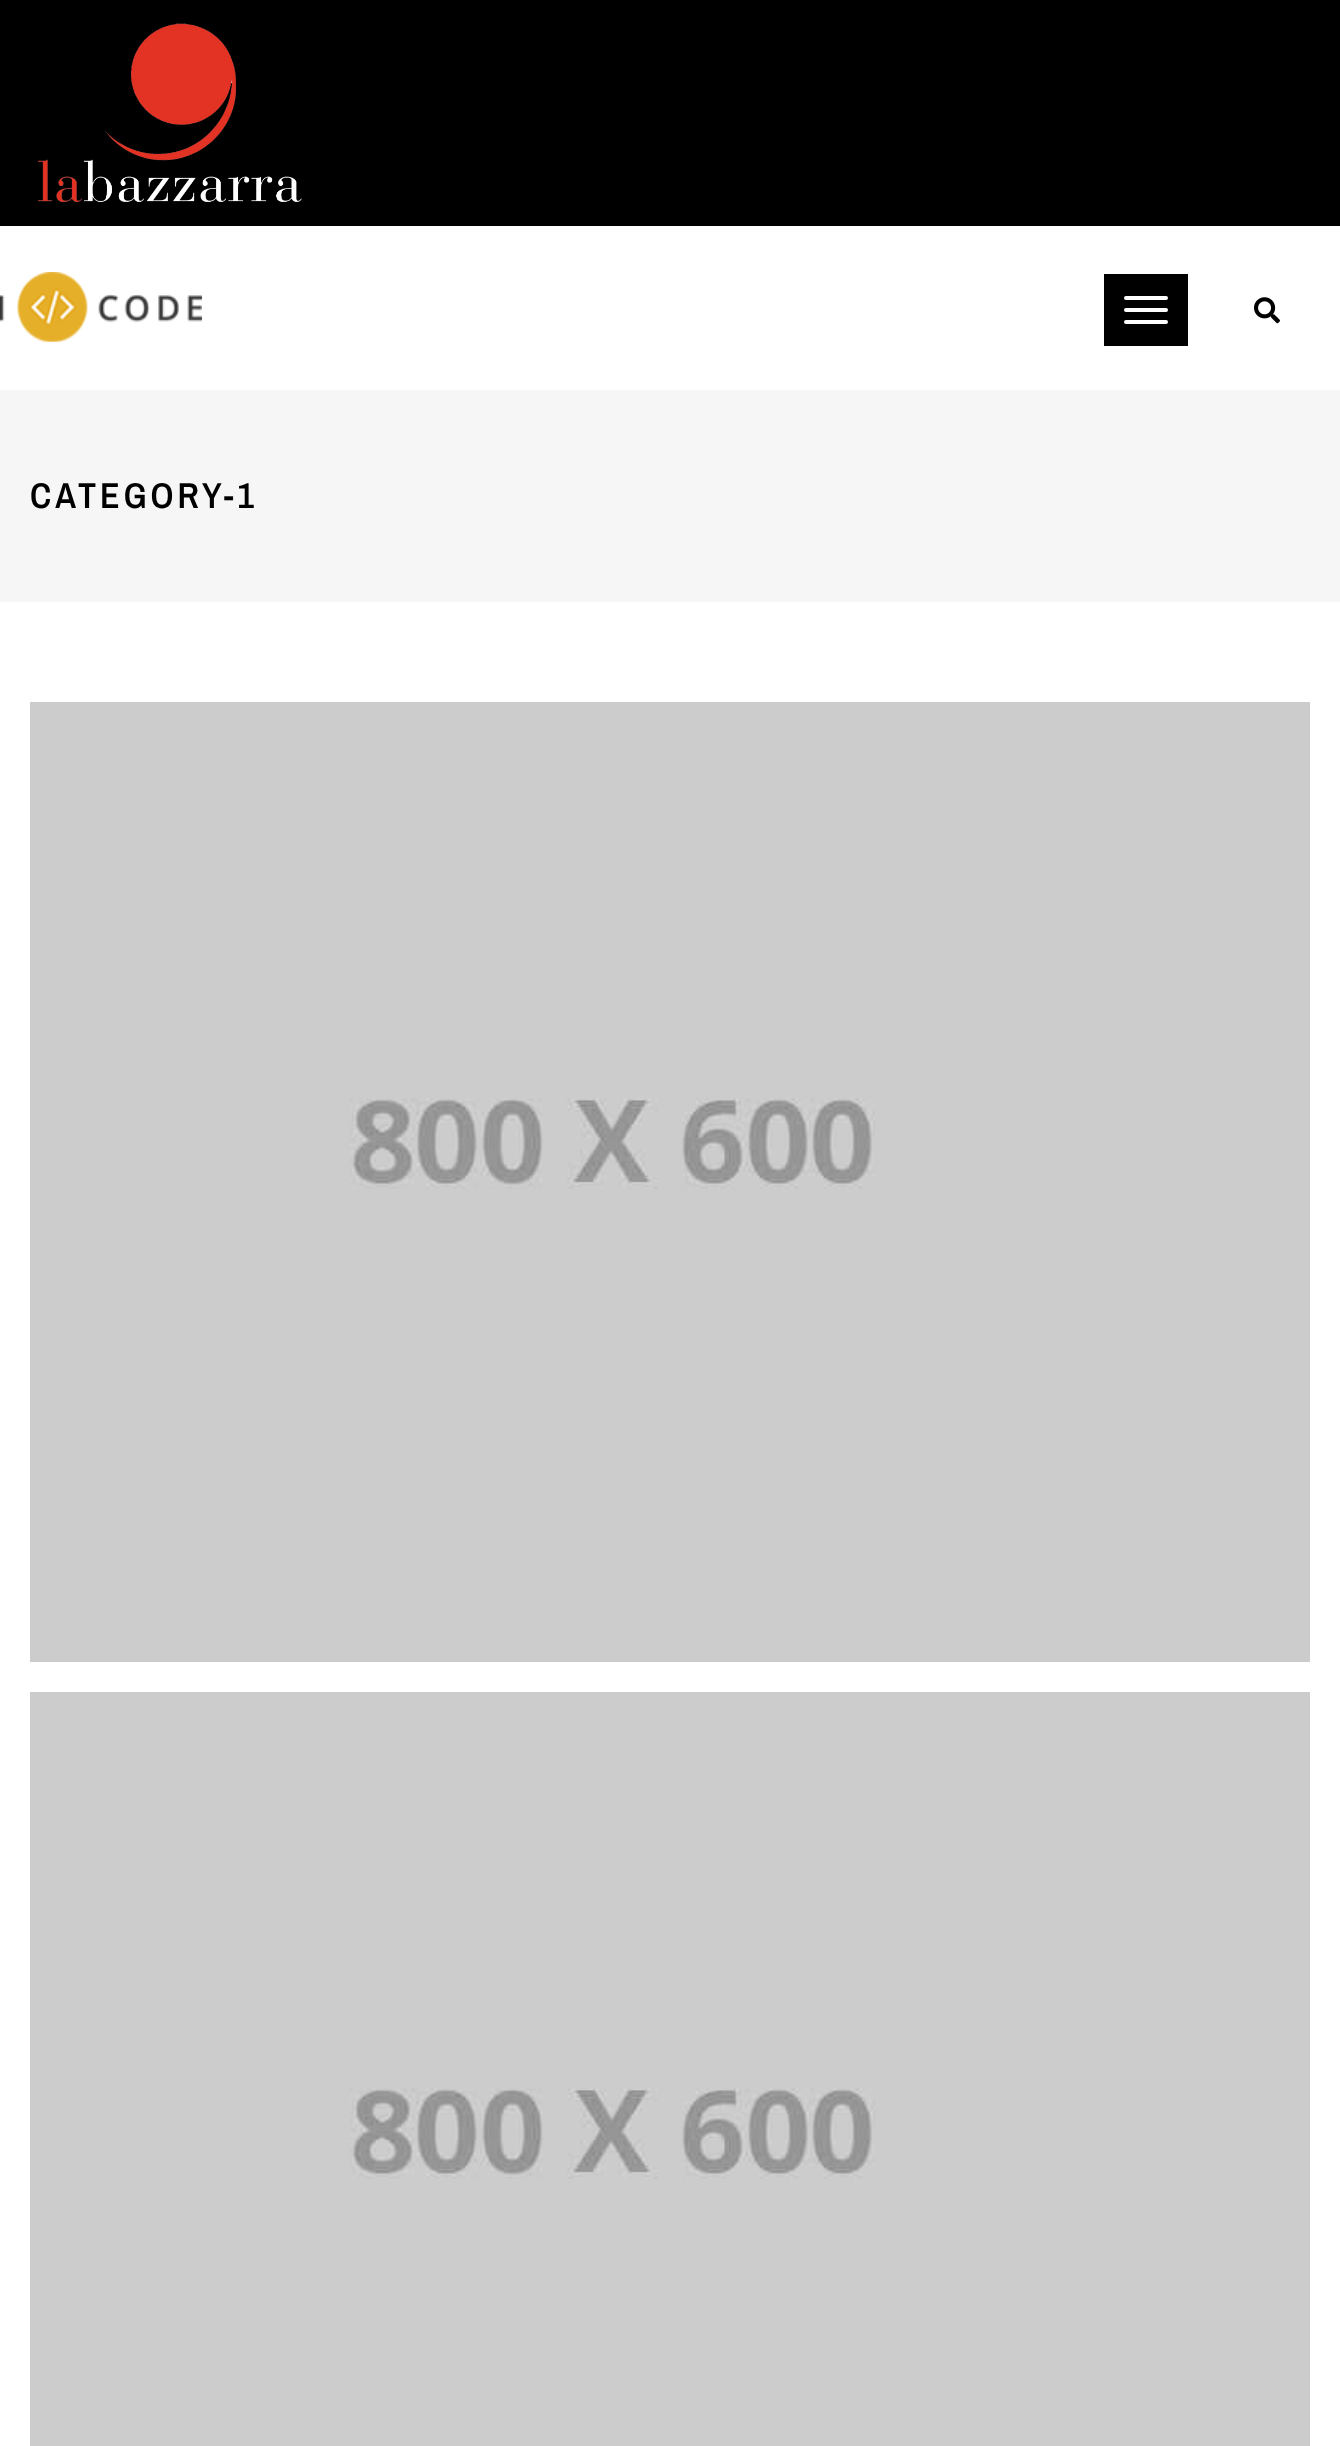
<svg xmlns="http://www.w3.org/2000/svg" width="1340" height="2446">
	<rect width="100%" height="100%" fill="#FFFFFF" />
	<rect x="0" y="0" width="1340" height="226" fill="#000000" />
	<image x="38" y="23" width="264" height="179" href="assets/img1.png" />
	<image x="0" y="272" width="202" height="70" href="assets/img2.png" />
	<rect x="1104" y="274" width="84" height="72" fill="#000000" />
	<rect x="1124" y="296" width="44" height="4" rx="2" fill="#FFFFFF" />
	<rect x="1124" y="308" width="44" height="4" rx="2" fill="#FFFFFF" />
	<rect x="1124" y="320" width="44" height="4" rx="2" fill="#FFFFFF" />
	<image x="1254" y="297" width="26" height="27" href="assets/img3.png" />
	<rect x="0" y="390" width="1340" height="212" fill="#F6F6F6" />
	<text x="30" y="508" font-family="Archivo Narrow" font-size="36" font-weight="600" letter-spacing="4" fill="#000000">CATEGORY-1</text>
	<image x="30" y="702" width="1280" height="960" href="assets/img4.png" />
	<image x="30" y="1692" width="1280" height="754" href="assets/img5.png" />
</svg>
